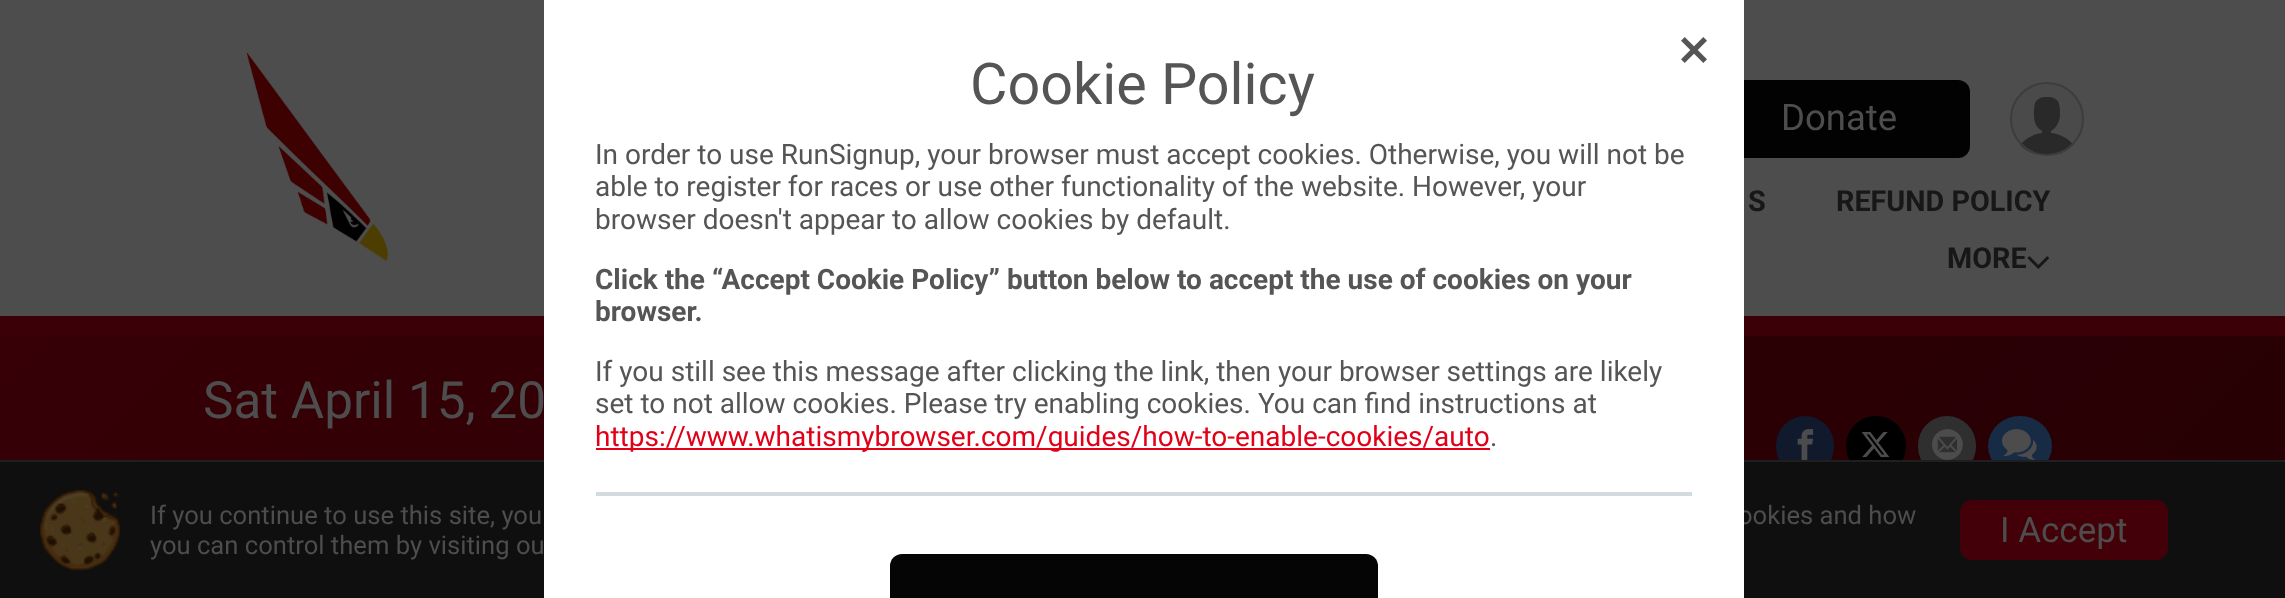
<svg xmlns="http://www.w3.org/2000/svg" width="2285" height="598">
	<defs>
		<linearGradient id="g1" gradientUnits="userSpaceOnUse" x1="1770" y1="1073" x2="516" y2="-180"><stop offset="0" stop-color="#260004" /><stop offset="1" stop-color="#360006" /></linearGradient>
		<clipPath id="clip1"><rect x="2010" y="82" width="74" height="74" rx="37" /></clipPath>
	</defs>
	<rect width="100%" height="100%" fill="#4D4D4D" />
	<rect x="1708" y="80" width="262" height="78" rx="12" fill="#020202" />
	<rect x="0" y="336" width="2285" height="124" fill="url(#g1)" />
	<rect x="0" y="316" width="2285" height="20" fill="#3B0007" />
	<rect x="1776" y="416" width="58" height="60" rx="29" fill="#11192D" />
	<circle cx="1876" cy="446" r="30" fill="#000000" />
	<rect x="1918" y="416" width="58" height="60" rx="29" fill="#2F2F2F" />
	<ellipse cx="2020" cy="446" rx="32" ry="30" fill="#172C44" />
	<rect x="0" y="462" width="2285" height="136" fill="#0F0F0F" />
	<rect x="0" y="460" width="2285" height="2" fill="#1F1F1F" />
	<text x="1738" y="524" font-family="Roboto" font-size="25.6" fill="#4D4D4D">ookies and how</text>
	<rect x="545" y="1" width="1198" height="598" fill="none" stroke="#FFFFFF" stroke-width="2" />
	<rect x="546" y="2" width="1196" height="596" fill="#FFFFFF" />
	<image x="1681" y="37" width="26" height="26" href="assets/img1.png" />
	<text x="970" y="104" font-family="Roboto" font-size="57.5" fill="#555555">Cookie Policy</text>
	<g font-family="Roboto" font-size="28" fill="#555555">
		<text x="595" y="164">In order to use RunSignup, your browser must accept cookies. Otherwise, you will not be</text>
		<text x="595" y="196">able to register for races or use other functionality of the website. However, your</text>
		<text x="595" y="229">browser doesn't appear to allow cookies by default.</text>
	</g>
	<g font-family="Roboto" font-size="28" font-weight="700" fill="#555555">
		<text x="595" y="289">Click the “Accept Cookie Policy” button below to accept the use of cookies on your</text>
		<text x="595" y="321">browser.</text>
	</g>
	<g font-family="Roboto" font-size="28" fill="#555555">
		<text x="595" y="381">If you still see this message after clicking the link, then your browser settings are likely</text>
		<text x="595" y="413">set to not allow cookies. Please try enabling cookies. You can find instructions at</text>
	</g>
	<rect x="596" y="448" width="894" height="2" fill="#E20019" />
	<text x="595" y="446" font-family="Roboto" font-size="28" fill="#E20019">https://www.whatismybrowser.com/guides/how-to-enable-cookies/auto</text>
	<text x="1490" y="446" font-family="Roboto" font-size="28" fill="#555555">.</text>
	<rect x="596" y="492" width="1096" height="4" fill="#D3DBDF" />
	<rect x="890" y="554" width="488" height="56" rx="12" fill="#050505" />
	<image x="247" y="52" width="141" height="209" href="assets/img2.png" />
	<text x="1781" y="130" font-family="Roboto" font-size="36.5" fill="#4D4D4D">Donate</text>
	<g clip-path="url(#clip1)">
		<rect x="2012" y="84" width="70" height="70" fill="#4A4A4A" />
	</g>
	<path d="M2051 133C2061 134 2069 139 2073 145C2069 149 2064 152 2059 154H2035C2029 152 2024 149 2020 145C2025 139 2033 134 2042 133V131C2038 128 2034 125 2034 115C2034 105 2034 97 2047 97C2060 97 2060 105 2060 115C2060 122 2056 128 2051 131Z" fill="#292929" />
	<circle cx="2047" cy="119" r="36" fill="none" stroke="#3D3D3D" stroke-width="2" />
	<g font-family="Roboto" font-size="28.75" font-weight="700" fill="#171717">
		<text x="1748" y="211">S</text>
		<text x="1836" y="211">REFUND POLICY</text>
		<text x="1947" y="268">MORE</text>
	</g>
	<image x="2027" y="256" width="22" height="13" href="assets/img3.png" />
	<text x="203" y="418" font-family="Roboto" font-size="51.25" fill="#4D4D4D">Sat April 15, 20</text>
	<image x="1797" y="429" width="17" height="31" href="assets/img4.png" />
	<image x="1861" y="432" width="29" height="26" href="assets/img5.png" />
	<image x="1932" y="429" width="31" height="31" href="assets/img6.png" />
	<image x="2002" y="429" width="35" height="31" href="assets/img7.png" />
	<image x="40" y="490" width="80" height="81" href="assets/img8.png" />
	<g font-family="Roboto" font-size="25.6" fill="#4D4D4D">
		<text x="150" y="524">If you continue to use this site, you</text>
		<text x="150" y="554">you can control them by visiting ou</text>
	</g>
	<rect x="1960" y="500" width="208" height="60" rx="12" fill="#440008" />
	<text x="2000" y="542" font-family="Roboto" font-size="35" fill="#4D4D4D">I Accept</text>
</svg>
